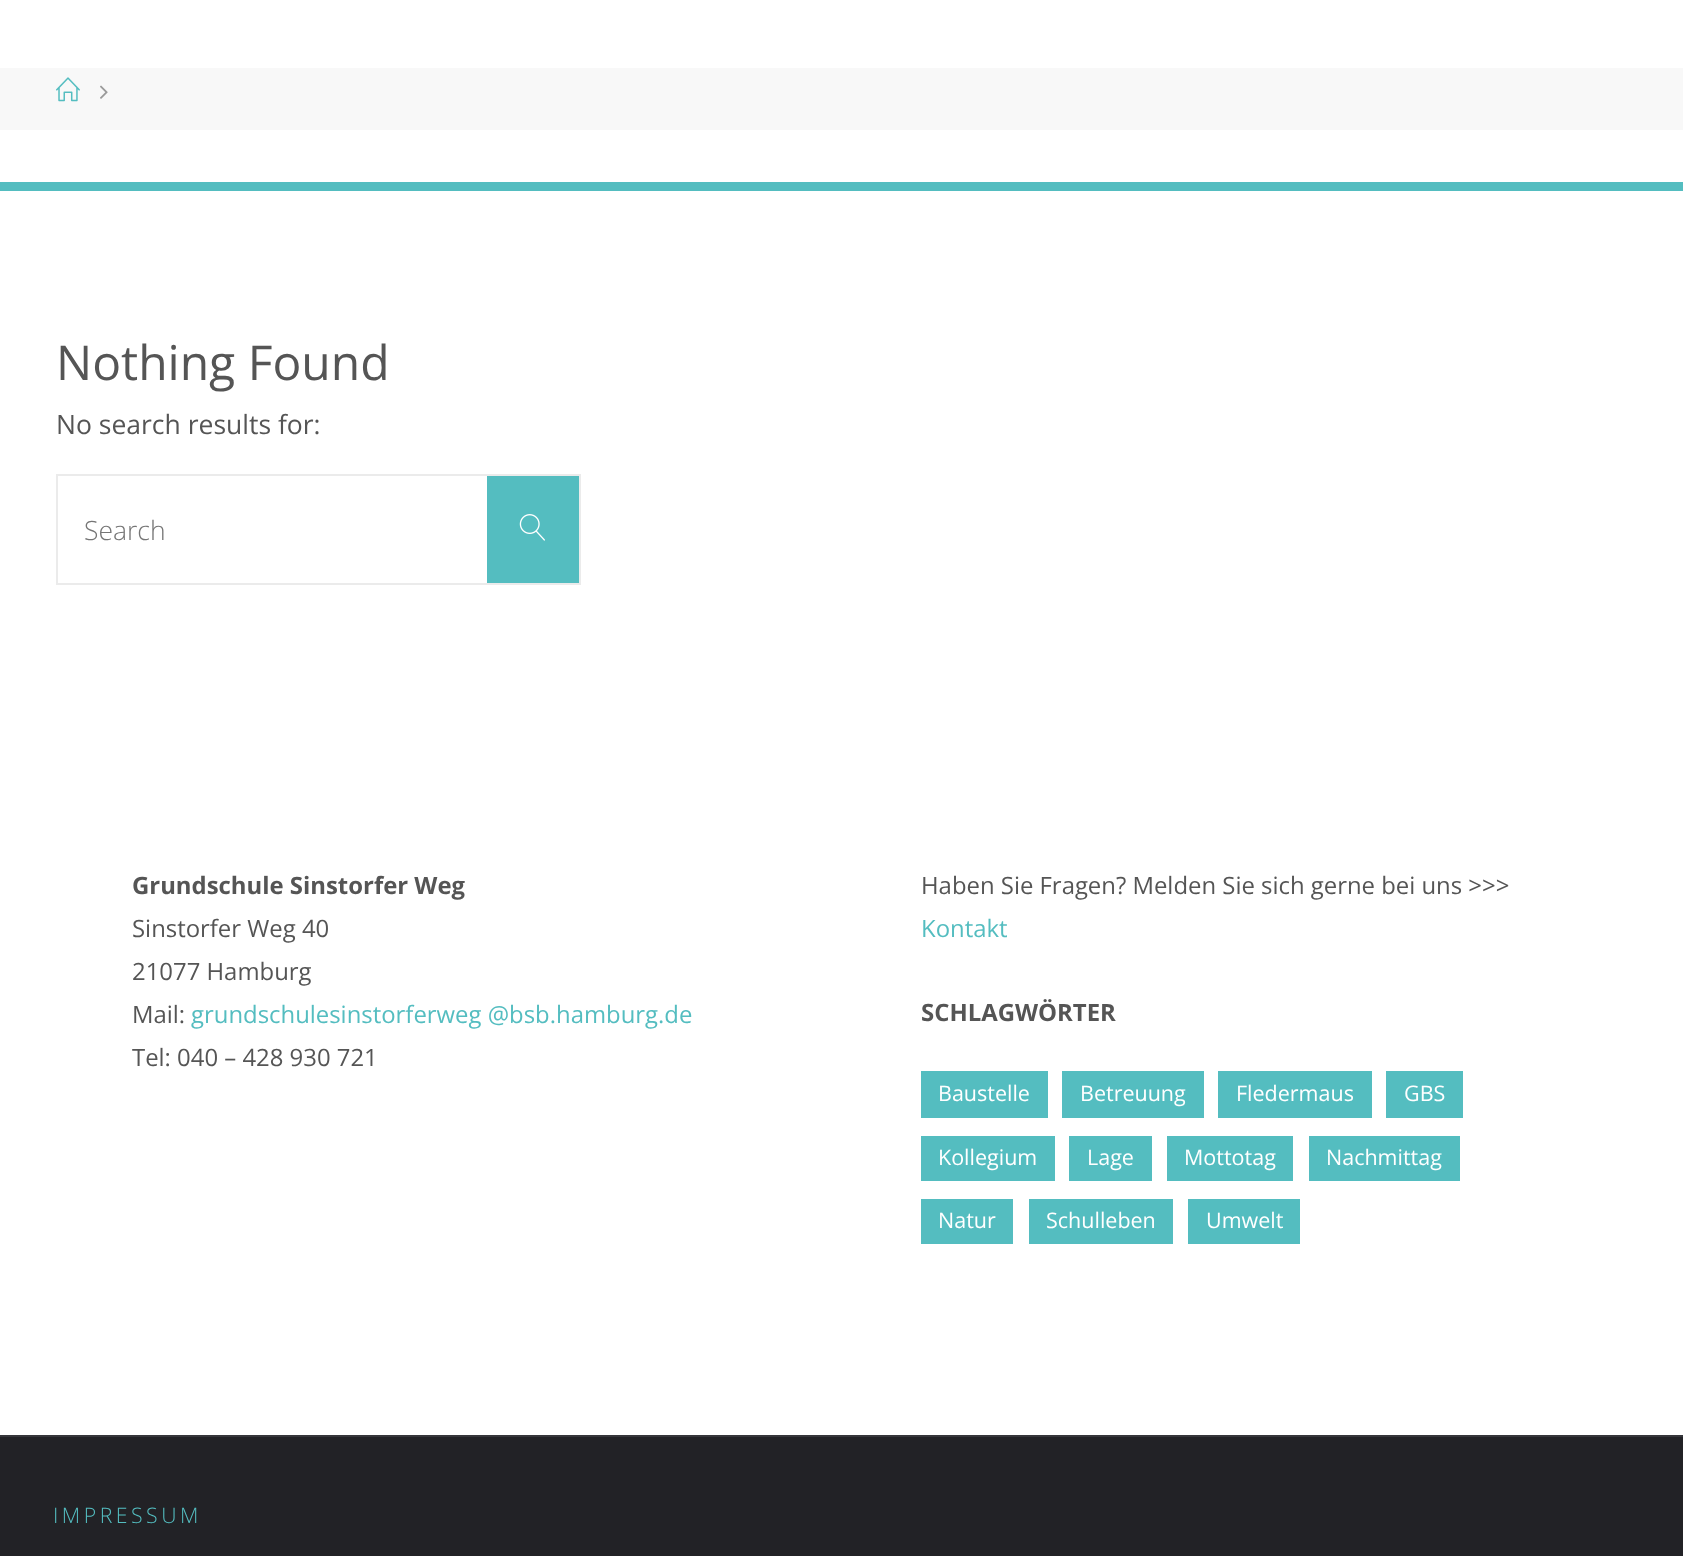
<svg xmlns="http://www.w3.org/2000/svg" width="1683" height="1556">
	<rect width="100%" height="100%" fill="#FFFFFF" />
	<rect x="0" y="68" width="1683" height="62" fill="#F8F8F8" />
	<image x="56" y="77" width="24" height="25" href="assets/img1.png" />
	<image x="100" y="85" width="8" height="14" href="assets/img2.png" />
	<rect x="0" y="182" width="1683" height="9" fill="#54BDC0" />
	<text x="56" y="380" font-family="Open Sans" font-size="48" fill="#555555">Nothing Found</text>
	<text x="56" y="434" font-family="Open Sans" font-size="26.5" fill="#555555">No search results for:</text>
	<rect x="57" y="475" width="523" height="109" fill="none" stroke="#EBEBEB" stroke-width="2" />
	<rect x="487" y="476" width="92" height="107" fill="#54BDC0" />
	<text x="84" y="540" font-family="'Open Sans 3'" font-size="26.5" fill="#757575">Search</text>
	<image x="519" y="514" width="26" height="27" href="assets/img3.png" />
	<text x="132" y="894" font-family="'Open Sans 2'" font-size="23.9" fill="#555555">Grundschule Sinstorfer Weg</text>
	<g font-family="Open Sans" font-size="23.9" fill="#555555">
		<text x="132" y="937">Sinstorfer Weg 40</text>
		<text x="132" y="980">21077 Hamburg</text>
		<text x="132" y="1023">Mail:</text>
	</g>
	<text x="191" y="1023" font-family="Open Sans" font-size="23.9" fill="#54BDC0">grundschulesinstorferweg @bsb.hamburg.de</text>
	<g font-family="Open Sans" font-size="23.9" fill="#555555">
		<text x="132" y="1066">Tel: 040 – 428 930 721</text>
		<text x="921" y="894">Haben Sie Fragen? Melden Sie sich gerne bei uns &gt;&gt;&gt;</text>
	</g>
	<text x="921" y="937" font-family="Open Sans" font-size="23.9" fill="#54BDC0">Kontakt</text>
	<text x="921" y="1021" font-family="'Open Sans 2'" font-size="23.9" fill="#555555">SCHLAGWÖRTER</text>
	<rect x="921" y="1071" width="127" height="47" fill="#54BDC0" />
	<text x="938" y="1101" font-family="Open Sans" font-size="21.5" fill="#FFFFFF">Baustelle</text>
	<rect x="1062" y="1071" width="142" height="47" fill="#54BDC0" />
	<text x="1080" y="1101" font-family="Open Sans" font-size="21.5" fill="#FFFFFF">Betreuung</text>
	<rect x="1218" y="1071" width="154" height="47" fill="#54BDC0" />
	<text x="1236" y="1101" font-family="Open Sans" font-size="21.5" fill="#FFFFFF">Fledermaus</text>
	<rect x="1386" y="1071" width="77" height="47" fill="#54BDC0" />
	<text x="1404" y="1101" font-family="Open Sans" font-size="21.5" fill="#FFFFFF">GBS</text>
	<rect x="921" y="1136" width="134" height="45" fill="#54BDC0" />
	<text x="938" y="1165" font-family="Open Sans" font-size="21.5" fill="#FFFFFF">Kollegium</text>
	<rect x="1069" y="1136" width="83" height="45" fill="#54BDC0" />
	<text x="1087" y="1165" font-family="Open Sans" font-size="21.5" fill="#FFFFFF">Lage</text>
	<rect x="1167" y="1136" width="126" height="45" fill="#54BDC0" />
	<text x="1184" y="1165" font-family="Open Sans" font-size="21.5" fill="#FFFFFF">Mottotag</text>
	<rect x="1309" y="1136" width="151" height="45" fill="#54BDC0" />
	<text x="1326" y="1165" font-family="Open Sans" font-size="21.5" fill="#FFFFFF">Nachmittag</text>
	<rect x="921" y="1199" width="92" height="45" fill="#54BDC0" />
	<text x="938" y="1228" font-family="Open Sans" font-size="21.5" fill="#FFFFFF">Natur</text>
	<rect x="1029" y="1199" width="144" height="45" fill="#54BDC0" />
	<text x="1046" y="1228" font-family="Open Sans" font-size="21.5" fill="#FFFFFF">Schulleben</text>
	<rect x="1188" y="1199" width="112" height="45" fill="#54BDC0" />
	<text x="1206" y="1228" font-family="Open Sans" font-size="21.5" fill="#FFFFFF">Umwelt</text>
	<rect x="0" y="1437" width="1683" height="119" fill="#222226" />
	<rect x="0" y="1435" width="1683" height="2" fill="#36363A" />
	<text x="53" y="1523" font-family="'Open Sans 3'" font-size="21.25" letter-spacing="3.5" fill="#54BDC0">IMPRESSUM</text>
</svg>
